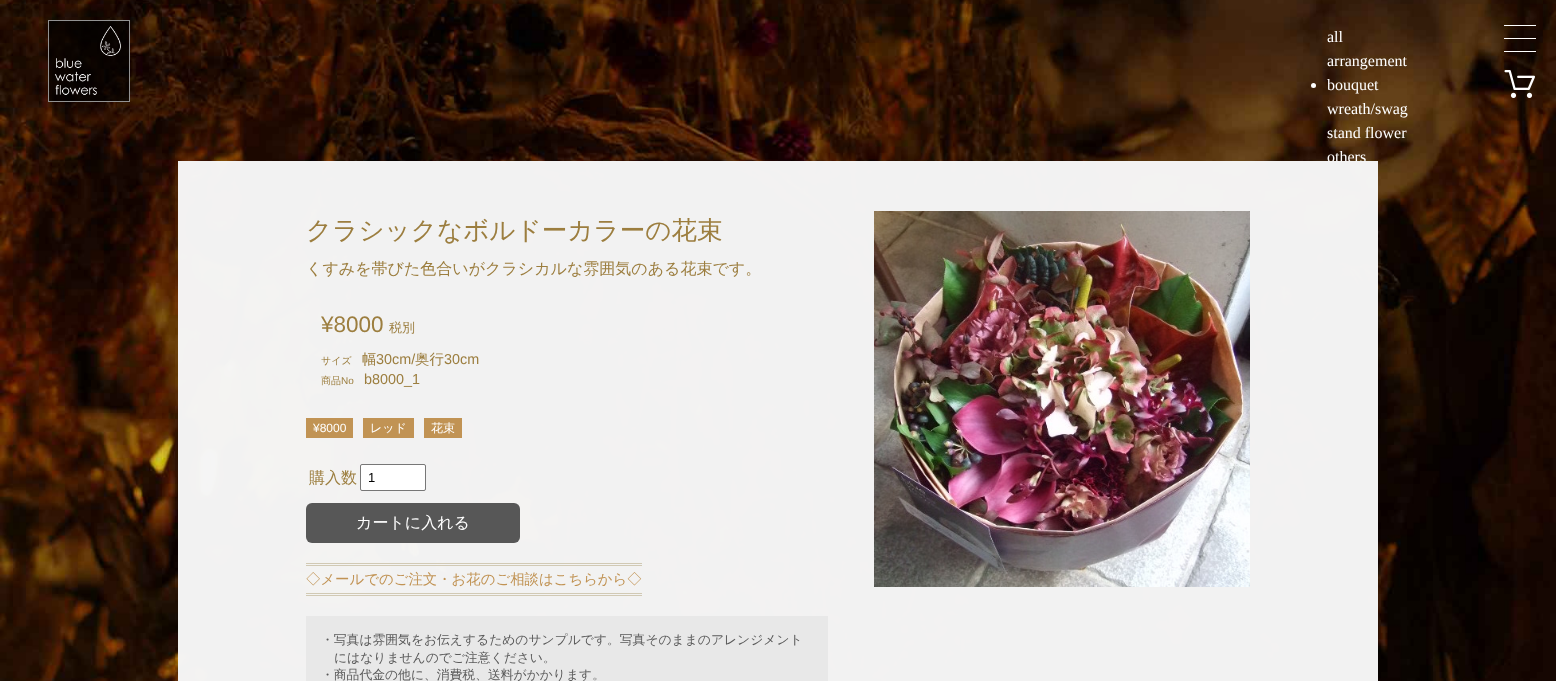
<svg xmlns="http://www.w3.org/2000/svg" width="1556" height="681">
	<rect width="100%" height="100%" fill="#FFFFFF" />
	<image x="0" y="0" width="1556" height="681" href="assets/img1.png" />
	<rect x="48.5" y="20.5" width="81" height="81" fill="none" stroke="#929292" />
	<image x="49" y="21" width="80" height="80" href="assets/img2.png" />
	<g font-family="Liberation Serif" font-size="16" fill="#FFFFFF">
		<text x="1327" y="42">all</text>
		<text x="1327" y="66">arrangement</text>
	</g>
	<circle cx="1313.5" cy="85.5" r="2.5" fill="#FFFFFF" />
	<g font-family="Liberation Serif" font-size="16" fill="#FFFFFF">
		<text x="1327" y="90">bouquet</text>
		<text x="1327" y="114">wreath/swag</text>
		<text x="1327" y="138">stand flower</text>
		<text x="1327" y="162">others</text>
	</g>
	<rect x="178" y="161" width="1200" height="520" fill="#F5F5F5" fill-opacity="0.99" />
	<text x="306" y="239" font-family="WenQuanYi Zen Hei" font-size="25.6" font-weight="500" fill="#9C7E3F">クラシックなボルドーカラーの花束</text>
	<text x="306" y="274" font-family="WenQuanYi Zen Hei" font-size="16" font-weight="500" fill="#9C7E3F">くすみを帯びた色合いがクラシカルな雰囲気のある花束です。</text>
	<text x="321" y="332" font-family="Liberation Sans" font-size="22.5" fill="#9C7E3F">¥8000</text>
	<text x="389" y="332" font-family="WenQuanYi Zen Hei" font-size="13" font-weight="500" fill="#9C7E3F">税別</text>
	<text x="321" y="364" font-family="WenQuanYi Zen Hei" font-size="10" font-weight="500" fill="#9C7E3F">サイズ</text>
	<text x="362" y="364" font-family="WenQuanYi Zen Hei" font-size="14.4" font-weight="500" fill="#9C7E3F">幅</text>
	<text x="376" y="364" font-family="Liberation Sans" font-size="14.4" fill="#9C7E3F">30cm/</text>
	<text x="415" y="364" font-family="WenQuanYi Zen Hei" font-size="14.4" font-weight="500" fill="#9C7E3F">奥行</text>
	<text x="444" y="364" font-family="Liberation Sans" font-size="14.4" fill="#9C7E3F">30cm</text>
	<text x="321" y="384" font-family="WenQuanYi Zen Hei" font-size="10" font-weight="500" fill="#9C7E3F">商品</text>
	<text x="341" y="384" font-family="Liberation Sans" font-size="10" fill="#9C7E3F">No</text>
	<text x="364" y="384" font-family="Liberation Sans" font-size="14.4" fill="#9C7E3F">b8000_1</text>
	<rect x="306" y="418" width="47" height="20" fill="#C19354" />
	<text x="313" y="432" font-family="Liberation Sans" font-size="12" fill="#FFFFFF">¥8000</text>
	<rect x="363" y="418" width="51" height="20" fill="#C19354" />
	<text x="370" y="432" font-family="WenQuanYi Zen Hei" font-size="12" font-weight="500" fill="#FFFFFF">レッド</text>
	<rect x="424" y="418" width="38" height="20" fill="#C19354" />
	<text x="431" y="432" font-family="WenQuanYi Zen Hei" font-size="12" font-weight="500" fill="#FFFFFF">花束</text>
	<text x="309" y="483" font-family="WenQuanYi Zen Hei" font-size="16" font-weight="500" fill="#9C7E3F">購入数</text>
	<rect x="360.5" y="464.5" width="65" height="26" rx="1.5" fill="#FFFFFF" stroke="#777777" />
	<text x="368" y="482" font-family="Liberation Sans" font-size="13" fill="#020202">1</text>
	<rect x="306" y="503" width="214" height="40" rx="6" fill="#575757" />
	<text x="356" y="528" font-family="WenQuanYi Zen Hei" font-size="16" font-weight="500" fill="#FFFFFF">カートに入れる</text>
	<rect x="306" y="563" width="336" height="1" fill="#D1C9B4" />
	<rect x="306" y="565" width="336" height="1" fill="#D1C9B4" />
	<rect x="306" y="593" width="336" height="1" fill="#D1C9B4" />
	<rect x="306" y="595" width="336" height="1" fill="#D1C9B4" />
	<text x="306" y="584" font-family="WenQuanYi Zen Hei" font-size="14.4" font-weight="500" fill="#C19354">◇メールでのご注文・お花のご相談はこちらから◇</text>
	<rect x="306" y="616" width="522" height="65" fill="#E8E8E8" />
	<g font-family="WenQuanYi Zen Hei" font-size="12.8" font-weight="500" fill="#5A5A5A">
		<text x="321" y="644">・写真は雰囲気をお伝えするためのサンプルです。写真そのままのアレンジメント</text>
		<text x="334" y="662">にはなりませんのでご注意ください。</text>
		<text x="321" y="679">・商品代金の他に、消費税、送料がかかります。</text>
	</g>
	<image x="874" y="211" width="376" height="376" href="assets/img3.png" />
	<rect x="1504" y="25" width="32" height="1" fill="#FFFFFF" />
	<rect x="1504" y="38" width="32" height="1" fill="#FFFFFF" />
	<rect x="1504" y="51" width="32" height="1" fill="#FFFFFF" />
	<image x="1504" y="70" width="31" height="28" href="assets/img4.png" />
</svg>
